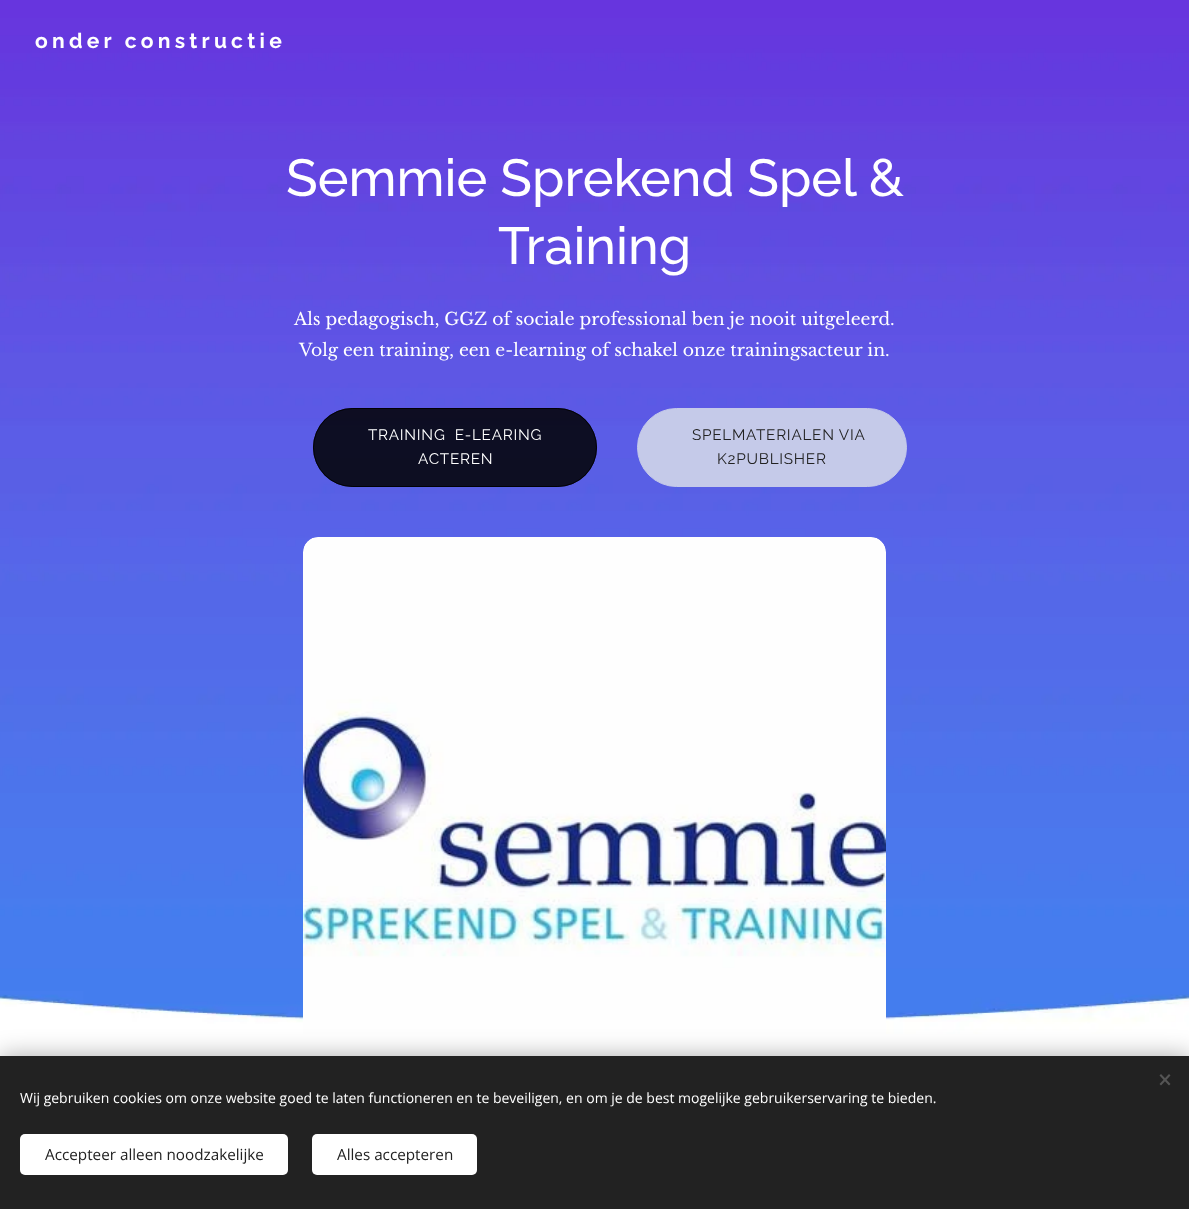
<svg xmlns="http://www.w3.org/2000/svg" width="1189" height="1209">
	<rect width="100%" height="100%" fill="#FFFFFF" />
	<image x="0" y="0" width="1189" height="1034" href="assets/img1.png" />
	<text x="35" y="48" font-family="Raleway" font-size="21" font-weight="700" letter-spacing="4.25" fill="#FFFFFF">onder constructie</text>
	<g font-family="Raleway" font-size="52" font-weight="500" fill="#FFFFFF">
		<text x="286" y="196">Semmie Sprekend Spel &amp;</text>
		<text x="498" y="264">Training</text>
	</g>
	<g font-family="Libre Baskerville" font-size="17.2" fill="#FFFFFF">
		<text x="294" y="325">Als pedagogisch, GGZ of sociale professional ben je nooit uitgeleerd.</text>
		<text x="299" y="356">Volg een training, een e-learning of schakel onze trainingsacteur in.</text>
	</g>
	<rect x="313" y="408" width="284" height="79" rx="39.5" fill="#000000" fill-opacity="0.85" />
	<rect x="313.5" y="408.5" width="283" height="78" rx="39" fill="none" stroke="#000000" stroke-opacity="0.85" />
	<g font-family="Raleway" font-size="15.25" letter-spacing="0.75" fill="#FFFFFF">
		<text x="368" y="440" xml:space="preserve">TRAINING  E-LEARING</text>
		<text x="418" y="464">ACTEREN</text>
	</g>
	<rect x="637.5" y="408.5" width="269" height="78" rx="39" fill="#C5CAE9" stroke="#C5CAE9" />
	<g font-family="Raleway" font-size="15.25" letter-spacing="0.75" fill="#222222">
		<text x="692" y="440">SPELMATERIALEN VIA</text>
		<text x="717" y="464">K2PUBLISHER</text>
	</g>
	<image x="303" y="537" width="583" height="497" href="assets/img2.png" />
	<rect x="0" y="1056" width="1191" height="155" fill="#000000" fill-opacity="0.33" filter="blur(12.5px)" />
	<rect x="0" y="1056" width="1189" height="153" fill="#222222" />
	<path d="M1159.5 1084L1169 1074L1170.5 1075.5L1161 1085.5Z" fill="#555555" />
	<path d="M1161 1074L1170.5 1084L1169 1085.5L1159.5 1075.5Z" fill="#555555" />
	<text x="20" y="1103" font-family="Open Sans" font-size="14" fill="#FFFFFF">Wij gebruiken cookies om onze website goed te laten functioneren en te beveiligen, en om je de best mogelijke gebruikerservaring te bieden.</text>
	<rect x="20" y="1134" width="268" height="41" rx="5" fill="#FFFFFF" />
	<text x="45" y="1160" font-family="Open Sans" font-size="15.25" fill="#222222">Accepteer alleen noodzakelijke</text>
	<rect x="312" y="1134" width="165" height="41" rx="5" fill="#FFFFFF" />
	<text x="337" y="1160" font-family="Open Sans" font-size="15.25" fill="#222222">Alles accepteren</text>
</svg>
